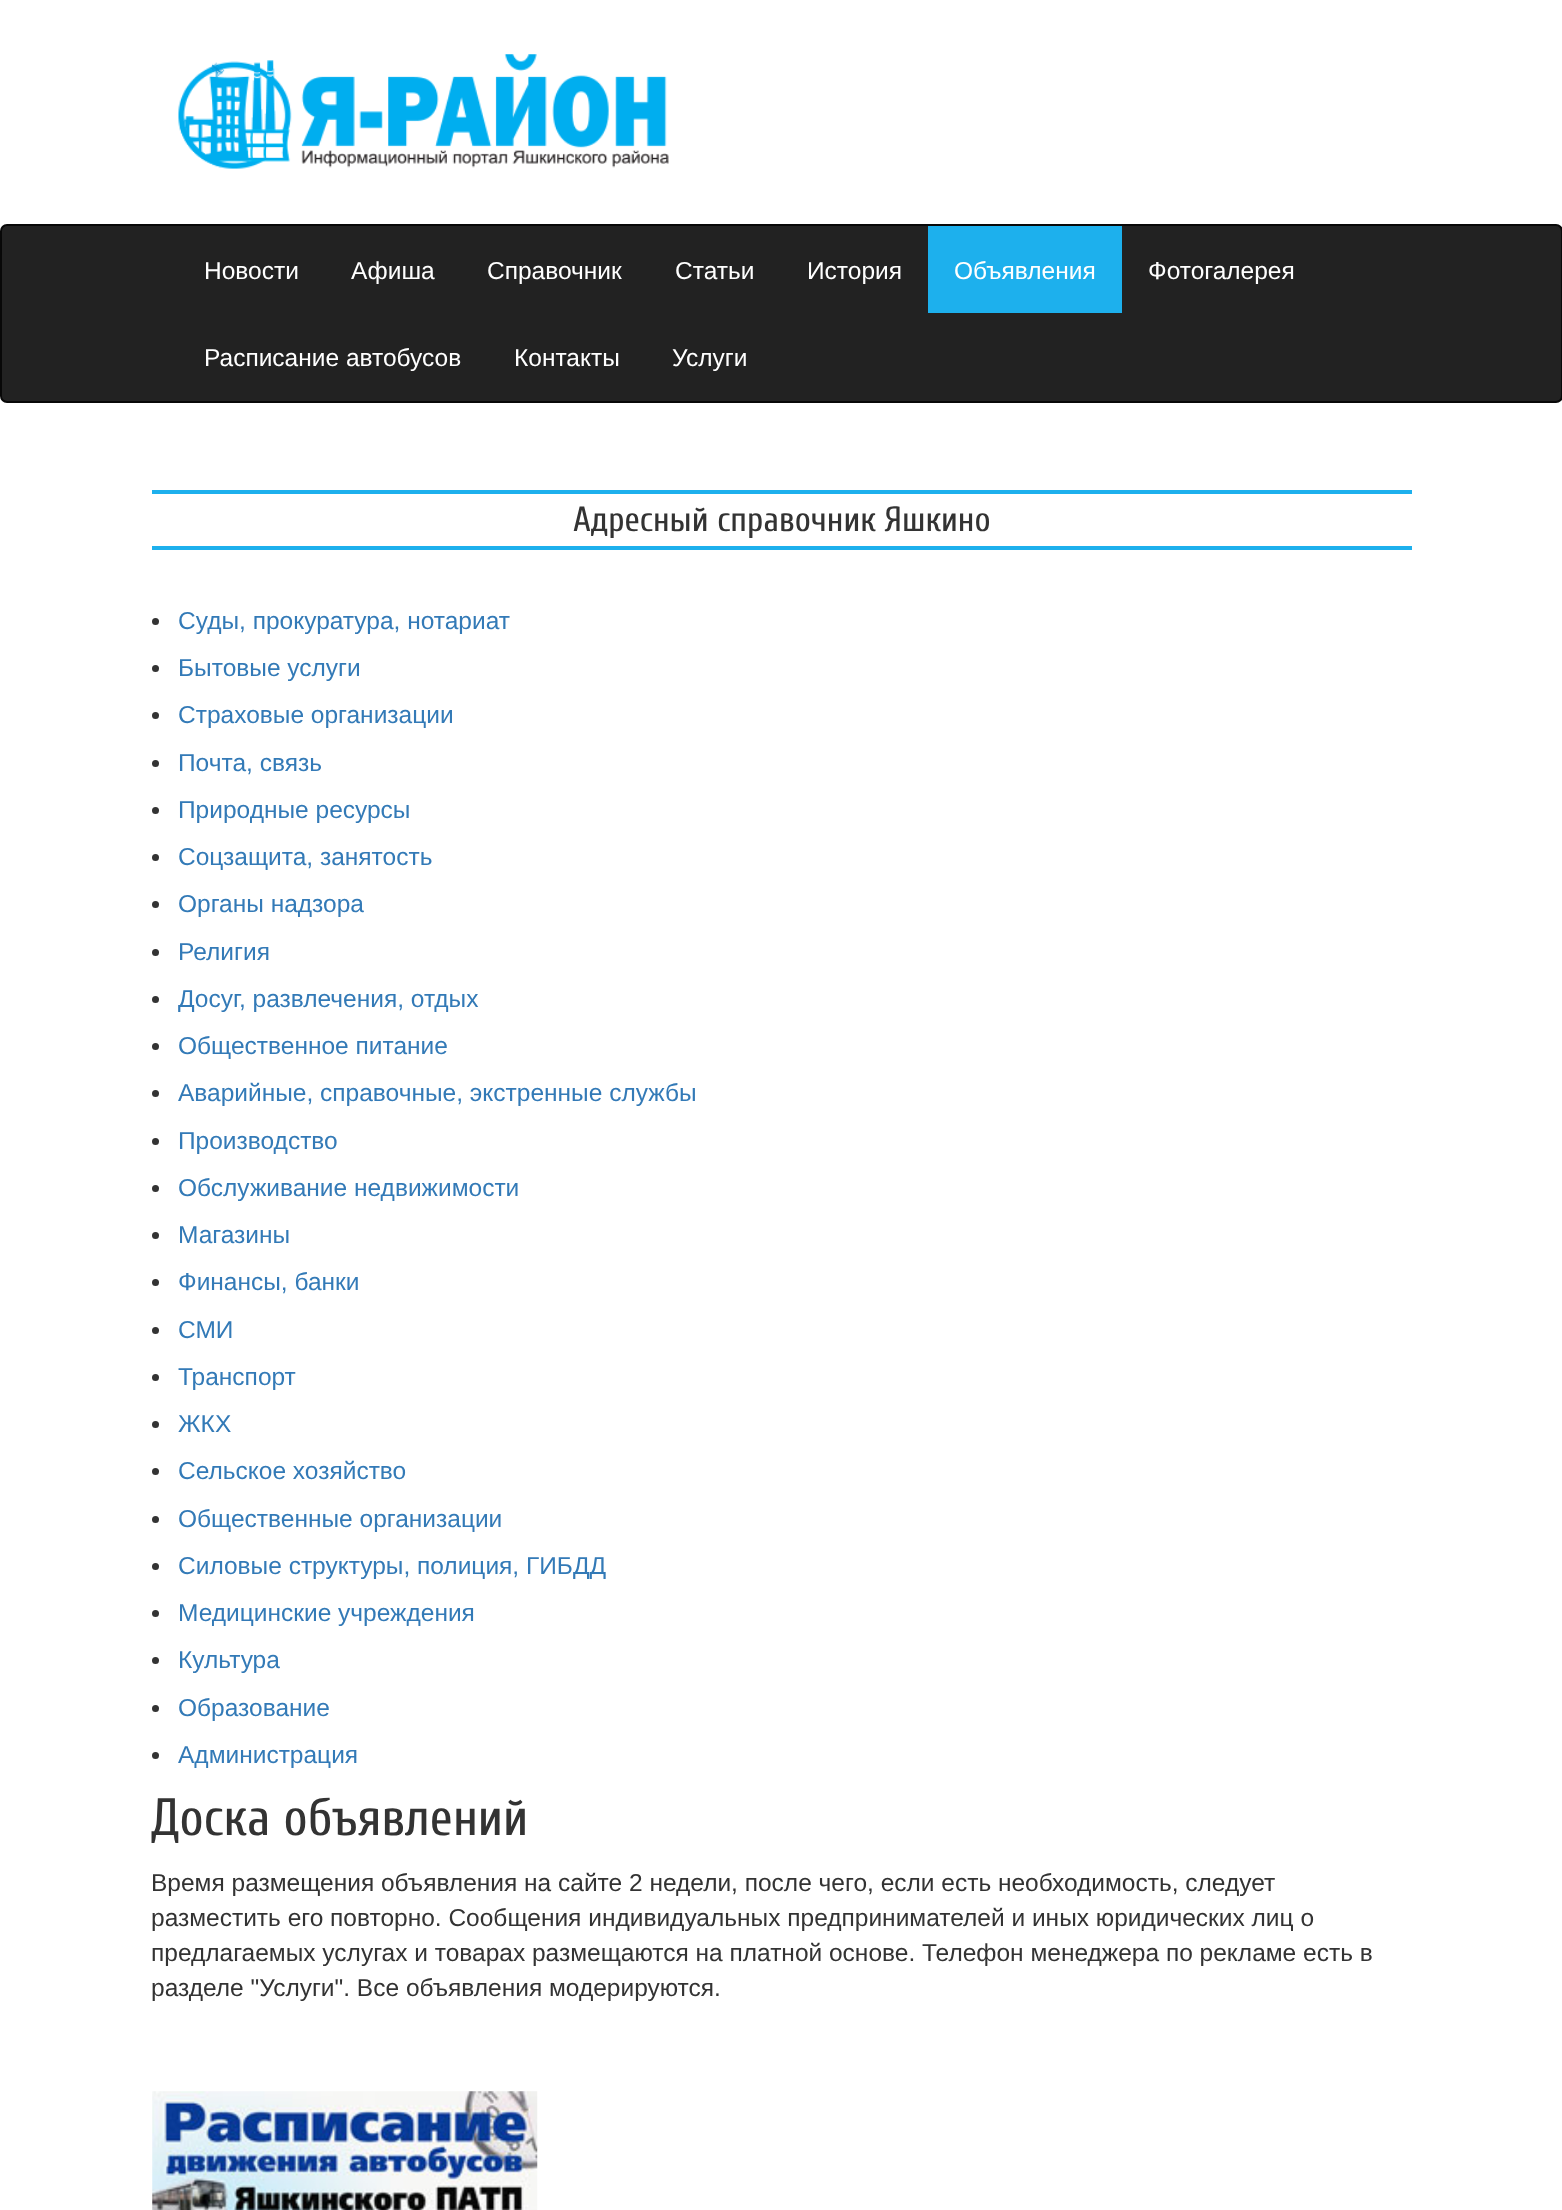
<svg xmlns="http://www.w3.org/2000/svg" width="1562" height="2210">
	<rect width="100%" height="100%" fill="#FFFFFF" />
	<image x="178" y="54" width="491" height="115" href="assets/img1.png" />
	<rect x="1" y="225" width="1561" height="177" rx="6" fill="#222222" stroke="#080808" stroke-width="2" />
	<g font-family="Liberation Sans" font-size="24.5" fill="#FFFFFF">
		<text x="204" y="279">Новости</text>
		<text x="351" y="279">Афиша</text>
		<text x="487" y="279">Справочник</text>
		<text x="675" y="279">Статьи</text>
		<text x="807" y="279">История</text>
	</g>
	<rect x="928" y="226" width="194" height="87" fill="#1DB0ED" />
	<g font-family="Liberation Sans" font-size="24.5" fill="#FFFFFF">
		<text x="954" y="279">Объявления</text>
		<text x="1148" y="279">Фотогалерея</text>
		<text x="204" y="366">Расписание автобусов</text>
		<text x="514" y="366">Контакты</text>
		<text x="672" y="366">Услуги</text>
	</g>
	<rect x="152" y="490" width="1260" height="4" fill="#1DB0ED" />
	<rect x="152" y="546" width="1260" height="4" fill="#1DB0ED" />
	<text x="573" y="531" font-family="Cuprum" font-size="35" fill="#333333">Адресный справочник Яшкино</text>
	<circle cx="155.5" cy="621.5" r="3.5" fill="#333333" />
	<text x="178" y="629" font-family="Liberation Sans" font-size="24.5" fill="#337AB7">Суды, прокуратура, нотариат</text>
	<circle cx="155.5" cy="668.5" r="3.5" fill="#333333" />
	<text x="178" y="676" font-family="Liberation Sans" font-size="24.5" fill="#337AB7">Бытовые услуги</text>
	<circle cx="155.5" cy="715.5" r="3.5" fill="#333333" />
	<text x="178" y="723" font-family="Liberation Sans" font-size="24.5" fill="#337AB7">Страховые организации</text>
	<circle cx="155.5" cy="763.5" r="3.5" fill="#333333" />
	<text x="178" y="771" font-family="Liberation Sans" font-size="24.5" fill="#337AB7">Почта, связь</text>
	<circle cx="155.5" cy="810.5" r="3.5" fill="#333333" />
	<text x="178" y="818" font-family="Liberation Sans" font-size="24.5" fill="#337AB7">Природные ресурсы</text>
	<circle cx="155.5" cy="857.5" r="3.5" fill="#333333" />
	<text x="178" y="865" font-family="Liberation Sans" font-size="24.5" fill="#337AB7">Соцзащита, занятость</text>
	<circle cx="155.5" cy="904.5" r="3.5" fill="#333333" />
	<text x="178" y="912" font-family="Liberation Sans" font-size="24.5" fill="#337AB7">Органы надзора</text>
	<circle cx="155.5" cy="952.5" r="3.5" fill="#333333" />
	<text x="178" y="960" font-family="Liberation Sans" font-size="24.5" fill="#337AB7">Религия</text>
	<circle cx="155.5" cy="999.5" r="3.5" fill="#333333" />
	<text x="178" y="1007" font-family="Liberation Sans" font-size="24.5" fill="#337AB7">Досуг, развлечения, отдых</text>
	<circle cx="155.5" cy="1046.5" r="3.5" fill="#333333" />
	<text x="178" y="1054" font-family="Liberation Sans" font-size="24.5" fill="#337AB7">Общественное питание</text>
	<circle cx="155.5" cy="1093.5" r="3.5" fill="#333333" />
	<text x="178" y="1101" font-family="Liberation Sans" font-size="24.5" fill="#337AB7">Аварийные, справочные, экстренные службы</text>
	<circle cx="155.5" cy="1141.5" r="3.5" fill="#333333" />
	<text x="178" y="1149" font-family="Liberation Sans" font-size="24.5" fill="#337AB7">Производство</text>
	<circle cx="155.5" cy="1188.5" r="3.5" fill="#333333" />
	<text x="178" y="1196" font-family="Liberation Sans" font-size="24.5" fill="#337AB7">Обслуживание недвижимости</text>
	<circle cx="155.5" cy="1235.5" r="3.5" fill="#333333" />
	<text x="178" y="1243" font-family="Liberation Sans" font-size="24.5" fill="#337AB7">Магазины</text>
	<circle cx="155.5" cy="1282.5" r="3.5" fill="#333333" />
	<text x="178" y="1290" font-family="Liberation Sans" font-size="24.5" fill="#337AB7">Финансы, банки</text>
	<circle cx="155.5" cy="1330.5" r="3.5" fill="#333333" />
	<text x="178" y="1338" font-family="Liberation Sans" font-size="24.5" fill="#337AB7">СМИ</text>
	<circle cx="155.5" cy="1377.5" r="3.5" fill="#333333" />
	<text x="178" y="1385" font-family="Liberation Sans" font-size="24.5" fill="#337AB7">Транспорт</text>
	<circle cx="155.5" cy="1424.5" r="3.5" fill="#333333" />
	<text x="178" y="1432" font-family="Liberation Sans" font-size="24.5" fill="#337AB7">ЖКХ</text>
	<circle cx="155.5" cy="1471.5" r="3.5" fill="#333333" />
	<text x="178" y="1479" font-family="Liberation Sans" font-size="24.5" fill="#337AB7">Сельское хозяйство</text>
	<circle cx="155.5" cy="1519.5" r="3.5" fill="#333333" />
	<text x="178" y="1527" font-family="Liberation Sans" font-size="24.5" fill="#337AB7">Общественные организации</text>
	<circle cx="155.5" cy="1566.5" r="3.5" fill="#333333" />
	<text x="178" y="1574" font-family="Liberation Sans" font-size="24.5" fill="#337AB7">Силовые структуры, полиция, ГИБДД</text>
	<circle cx="155.5" cy="1613.5" r="3.5" fill="#333333" />
	<text x="178" y="1621" font-family="Liberation Sans" font-size="24.5" fill="#337AB7">Медицинские учреждения</text>
	<circle cx="155.5" cy="1660.5" r="3.5" fill="#333333" />
	<text x="178" y="1668" font-family="Liberation Sans" font-size="24.5" fill="#337AB7">Культура</text>
	<circle cx="155.5" cy="1708.5" r="3.5" fill="#333333" />
	<text x="178" y="1716" font-family="Liberation Sans" font-size="24.5" fill="#337AB7">Образование</text>
	<circle cx="155.5" cy="1755.5" r="3.5" fill="#333333" />
	<text x="178" y="1763" font-family="Liberation Sans" font-size="24.5" fill="#337AB7">Администрация</text>
	<text x="151" y="1835" font-family="Cuprum" font-size="52.5" fill="#333333">Доска объявлений</text>
	<g font-family="Liberation Sans" font-size="24.5" fill="#333333">
		<text x="151" y="1891">Время размещения объявления на сайте 2 недели, после чего, если есть необходимость, следует</text>
		<text x="151" y="1926">разместить его повторно. Сообщения индивидуальных предпринимателей и иных юридических лиц о</text>
		<text x="151" y="1961">предлагаемых услугах и товарах размещаются на платной основе. Телефон менеджера по рекламе есть в</text>
		<text x="151" y="1996">разделе "Услуги". Все объявления модерируются.</text>
	</g>
	<image x="152" y="2091" width="386" height="119" href="assets/img2.png" />
</svg>
